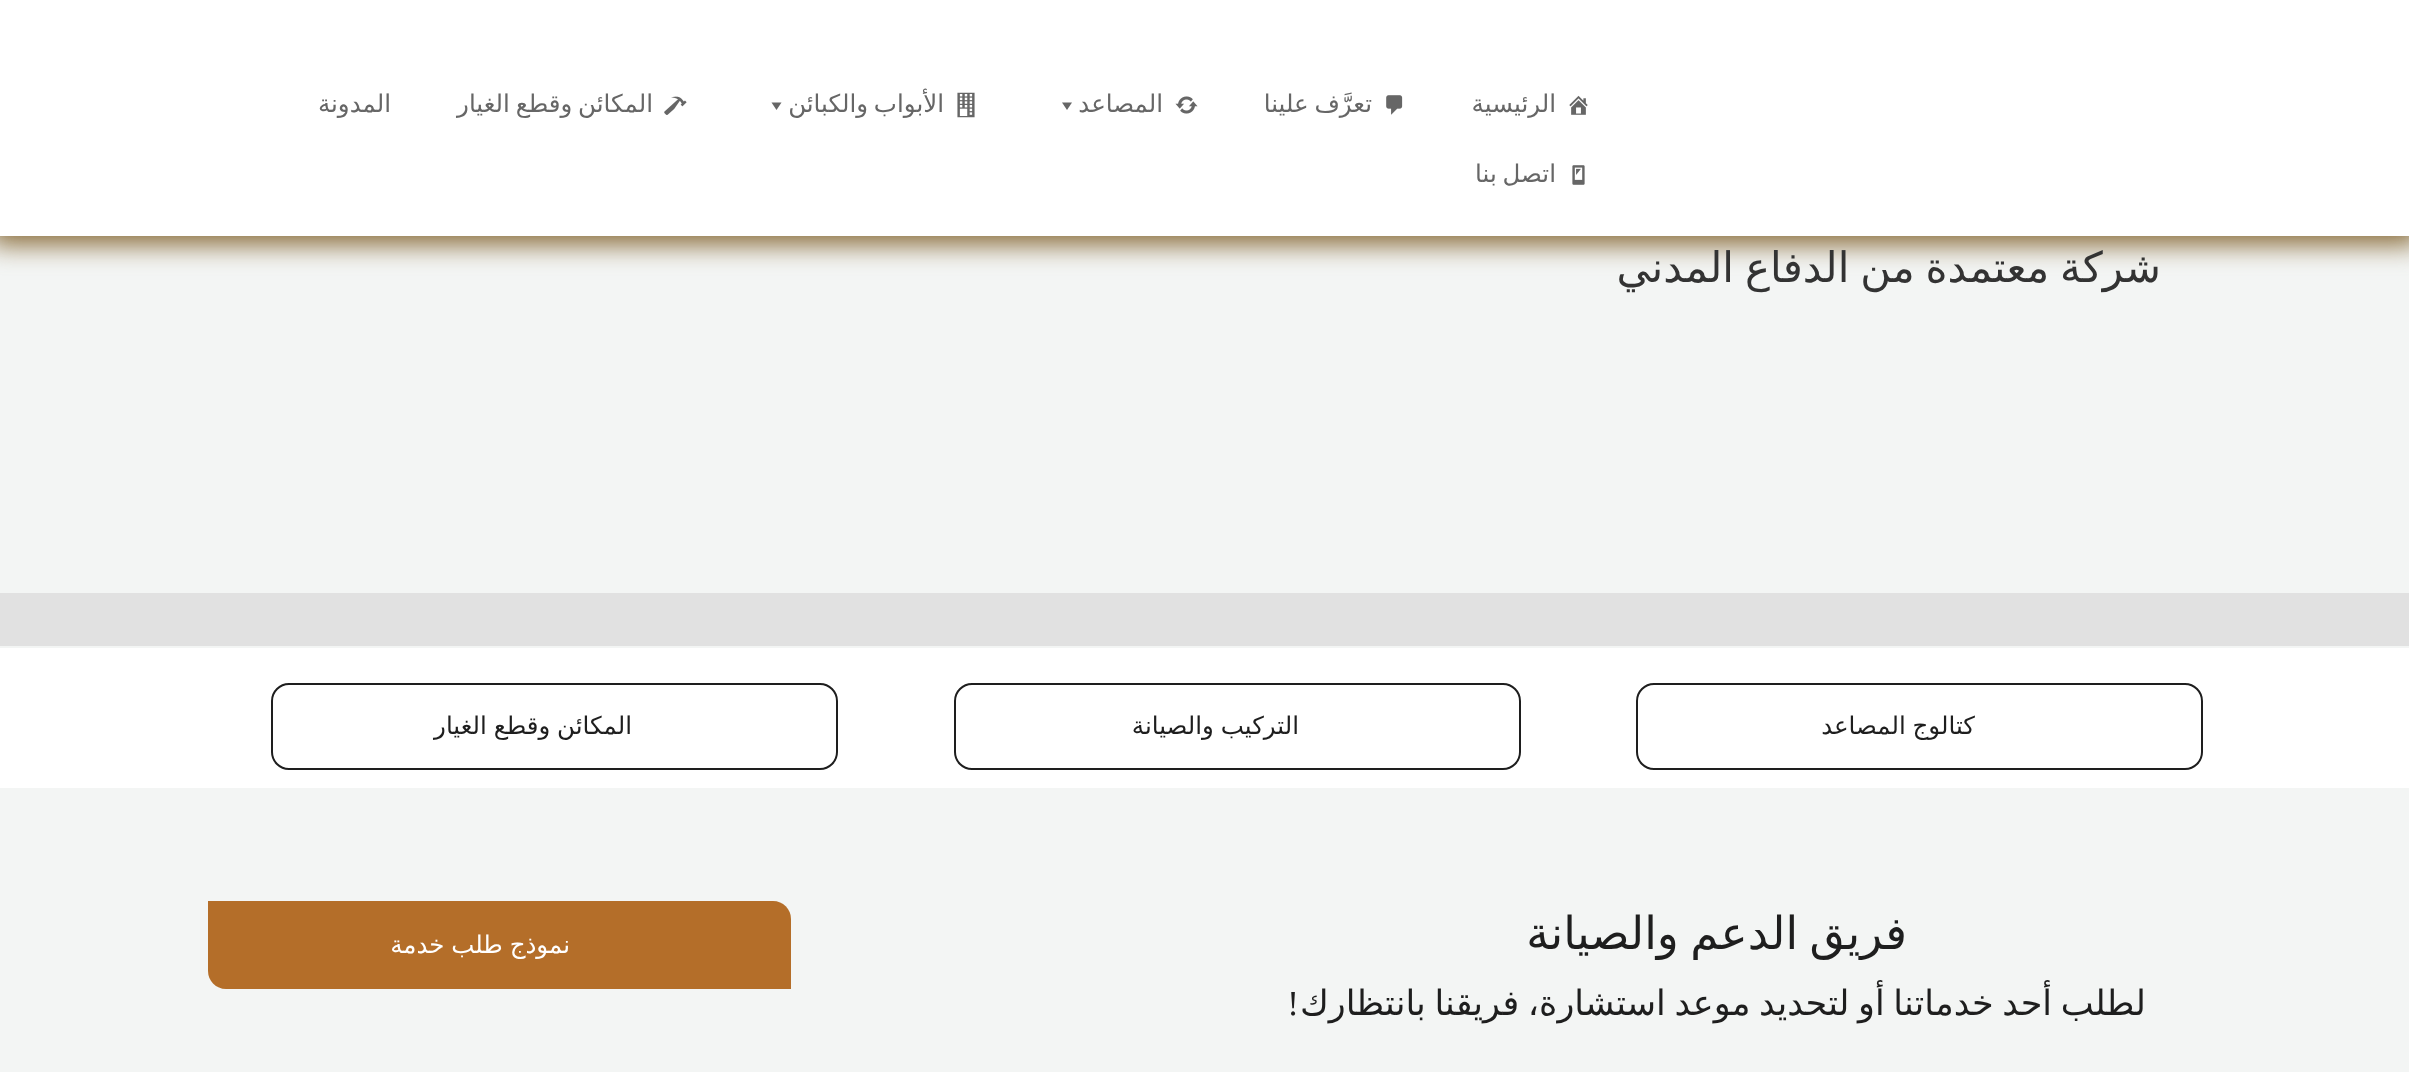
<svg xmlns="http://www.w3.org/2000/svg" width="2409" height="1072">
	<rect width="100%" height="100%" fill="#F3F5F4" />
	<rect x="-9" y="-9" width="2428" height="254" fill="#8A6D3B" filter="blur(13px)" />
	<rect x="0" y="0" width="2409" height="236" fill="#FFFFFF" />
	<image x="1569" y="95" width="19" height="20" href="assets/img1.png" />
	<text x="1556" y="112" font-family="DejaVu Sans" font-size="24.5" direction="rtl" fill="#666666">الرئيسية</text>
	<image x="1386" y="95" width="17" height="20" href="assets/img2.png" />
	<text x="1372" y="112" word-spacing="-2" font-family="DejaVu Sans" font-size="24.5" direction="rtl" fill="#666666">تعرَّف علينا</text>
	<image x="1175" y="96" width="23" height="18" href="assets/img3.png" />
	<text x="1163" y="112" font-family="DejaVu Sans" font-size="24.5" direction="rtl" fill="#666666">المصاعد</text>
	<path d="M1072 102.5L1067 110L1062 102.5Z" fill="#666666" />
	<image x="957" y="92" width="18" height="26" href="assets/img4.png" />
	<text x="944" y="112" word-spacing="-2" font-family="DejaVu Sans" font-size="24.5" direction="rtl" fill="#666666">الأبواب والكبائن</text>
	<path d="M781.5 102.5L776.5 110L771.5 102.5Z" fill="#666666" />
	<image x="664" y="96" width="23" height="19" href="assets/img5.png" />
	<g font-family="DejaVu Sans" font-size="24.5" direction="rtl" fill="#666666">
		<text x="653" y="112" word-spacing="-2">المكائن وقطع الغيار</text>
		<text x="391" y="112">المدونة</text>
	</g>
	<image x="1572" y="165" width="13" height="20" href="assets/img6.png" />
	<text x="1556" y="182" word-spacing="-2" font-family="DejaVu Sans" font-size="24.5" direction="rtl" fill="#666666">اتصل بنا</text>
	<text x="2161" y="282" word-spacing="-2.5" font-family="DejaVu Sans" font-size="42" direction="rtl" fill="#333333">شركة معتمدة من الدفاع المدني</text>
	<rect x="0" y="593" width="2409" height="53" fill="#E1E1E1" />
	<rect x="0" y="648" width="2409" height="140" fill="#FFFFFF" />
	<rect x="1637" y="684" width="565" height="85" rx="17" fill="none" stroke="#1E1E1E" stroke-width="2" />
	<text x="1975" y="734" word-spacing="-1" font-family="DejaVu Sans" font-size="24.5" direction="rtl" fill="#1E1E1E">كتالوج المصاعد</text>
	<rect x="955" y="684" width="565" height="85" rx="17" fill="none" stroke="#1E1E1E" stroke-width="2" />
	<text x="1299" y="734" word-spacing="-1" font-family="DejaVu Sans" font-size="24.5" direction="rtl" fill="#1E1E1E">التركيب والصيانة</text>
	<rect x="272" y="684" width="565" height="85" rx="17" fill="none" stroke="#1E1E1E" stroke-width="2" />
	<text x="632" y="734" word-spacing="-1" font-family="DejaVu Sans" font-size="24.5" direction="rtl" fill="#1E1E1E">المكائن وقطع الغيار</text>
	<text x="1907" y="949" word-spacing="-3" font-family="DejaVu Sans" font-size="45.5" direction="rtl" fill="#1E1E1E">فريق الدعم والصيانة</text>
	<text x="2146" y="1015" word-spacing="-2.5" font-family="DejaVu Sans" font-size="35" direction="rtl" fill="#1E1E1E">لطلب أحد خدماتنا أو لتحديد موعد استشارة، فريقنا بانتظارك</text>
	<text x="1299" y="1015" font-family="Liberation Serif" font-size="35" direction="rtl" fill="#1E1E1E">!</text>
	<path d="M208 901H773C783 901 791 909 791 919V989H226C216 989 208 981 208 971Z" fill="#B46E29" />
	<text x="570" y="953" word-spacing="-1" font-family="DejaVu Sans" font-size="24.5" direction="rtl" fill="#FFFFFF">نموذج طلب خدمة</text>
</svg>
